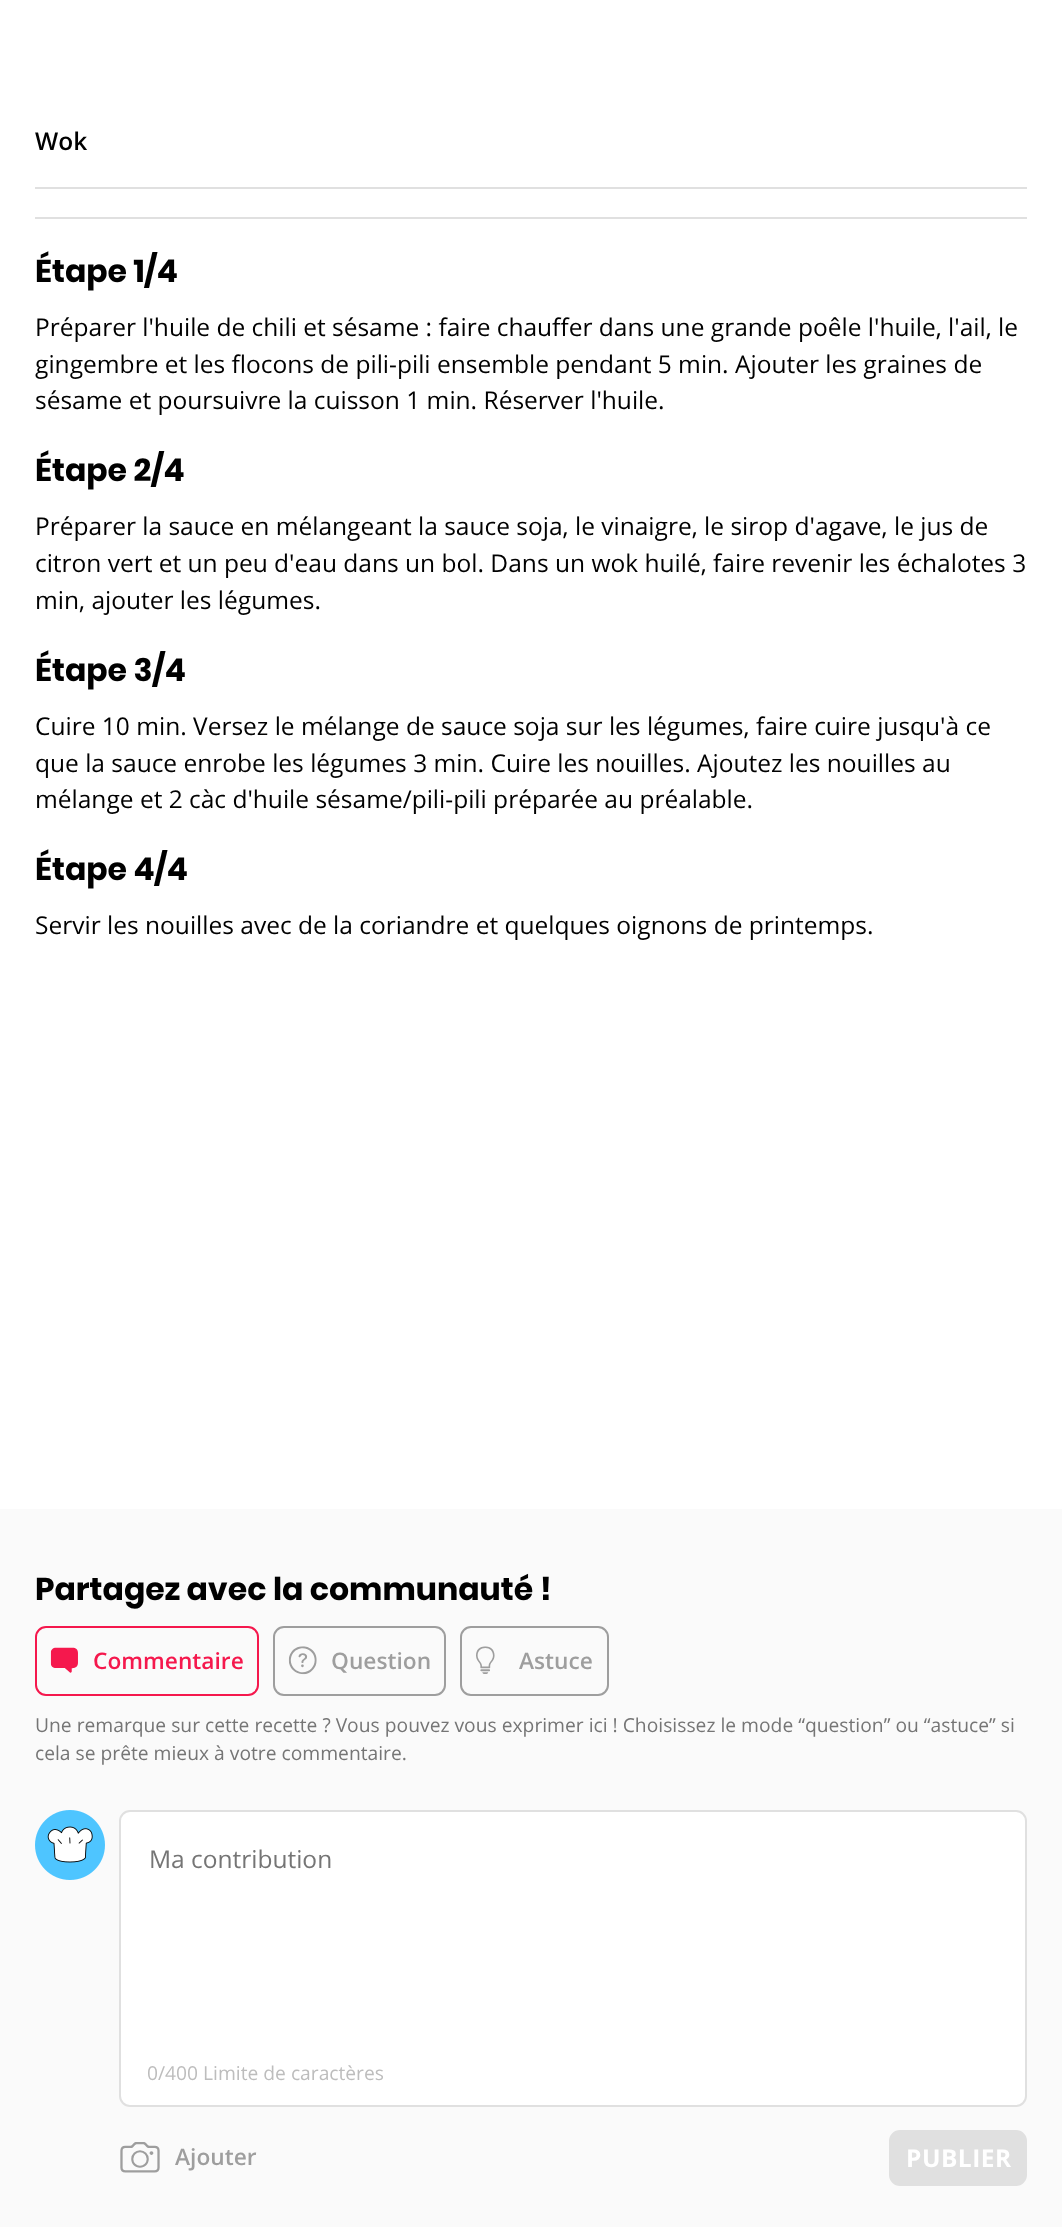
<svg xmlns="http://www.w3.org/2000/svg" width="1062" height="2227">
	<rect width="100%" height="100%" fill="#FFFFFF" />
	<text x="35" y="150" font-family="Open Sans" font-size="24.5" font-weight="600" fill="#000000">Wok</text>
	<rect x="35" y="187" width="992" height="2" fill="#E0E0E0" />
	<rect x="35" y="217" width="992" height="2" fill="#E0E0E0" />
	<text x="35" y="282" font-family="Poppins" font-size="31.5" font-weight="700" fill="#000000">Étape 1/4</text>
	<g font-family="Open Sans" font-size="24.5" fill="#000000">
		<text x="35" y="336">Préparer l'huile de chili et sésame : faire chauffer dans une grande poêle l'huile, l'ail, le</text>
		<text x="35" y="373">gingembre et les flocons de pili-pili ensemble pendant 5 min. Ajouter les graines de</text>
		<text x="35" y="409">sésame et poursuivre la cuisson 1 min. Réserver l'huile.</text>
	</g>
	<text x="35" y="481" font-family="Poppins" font-size="31.5" font-weight="700" fill="#000000">Étape 2/4</text>
	<g font-family="Open Sans" font-size="24.5" fill="#000000">
		<text x="35" y="535">Préparer la sauce en mélangeant la sauce soja, le vinaigre, le sirop d'agave, le jus de</text>
		<text x="35" y="572">citron vert et un peu d'eau dans un bol. Dans un wok huilé, faire revenir les échalotes 3</text>
		<text x="35" y="609">min, ajouter les légumes.</text>
	</g>
	<text x="35" y="681" font-family="Poppins" font-size="31.5" font-weight="700" fill="#000000">Étape 3/4</text>
	<g font-family="Open Sans" font-size="24.5" fill="#000000">
		<text x="35" y="735">Cuire 10 min. Versez le mélange de sauce soja sur les légumes, faire cuire jusqu'à ce</text>
		<text x="35" y="772">que la sauce enrobe les légumes 3 min. Cuire les nouilles. Ajoutez les nouilles au</text>
		<text x="35" y="808">mélange et 2 càc d'huile sésame/pili-pili préparée au préalable.</text>
	</g>
	<text x="35" y="880" font-family="Poppins" font-size="31.5" font-weight="700" fill="#000000">Étape 4/4</text>
	<text x="35" y="934" font-family="Open Sans" font-size="24.5" fill="#000000">Servir les nouilles avec de la coriandre et quelques oignons de printemps.</text>
	<rect x="0" y="1509" width="1062" height="718" fill="#FAFAFA" />
	<text x="35" y="1600" font-family="Poppins" font-size="31.5" font-weight="700" fill="#000000">Partagez avec la communauté !</text>
	<rect x="36" y="1627" width="222" height="68" rx="10" fill="none" stroke="#F5184D" stroke-width="2" />
	<image x="50" y="1647" width="28" height="26" href="assets/img1.png" />
	<text x="93" y="1669" font-family="Open Sans" font-size="22.75" font-weight="600" fill="#F5184D">Commentaire</text>
	<rect x="274" y="1627" width="171" height="68" rx="10" fill="none" stroke="#9E9E9E" stroke-width="2" />
	<image x="288" y="1646" width="29" height="29" href="assets/img2.png" />
	<text x="331" y="1669" font-family="Open Sans" font-size="22.75" font-weight="600" fill="#9E9E9E">Question</text>
	<rect x="461" y="1627" width="147" height="68" rx="10" fill="none" stroke="#9E9E9E" stroke-width="2" />
	<image x="476" y="1646" width="19" height="28" href="assets/img3.png" />
	<text x="519" y="1669" font-family="Open Sans" font-size="22.75" font-weight="600" fill="#9E9E9E">Astuce</text>
	<g font-family="Open Sans" font-size="19.25" fill="#757575">
		<text x="35" y="1732">Une remarque sur cette recette ? Vous pouvez vous exprimer ici ! Choisissez le mode “question” ou “astuce” si</text>
		<text x="35" y="1760">cela se prête mieux à votre commentaire.</text>
	</g>
	<image x="35" y="1810" width="70" height="70" href="assets/img4.png" />
	<rect x="120" y="1811" width="906" height="295" rx="10" fill="#FFFFFF" stroke="#E0E0E0" stroke-width="2" />
	<text x="149" y="1868" font-family="Open Sans" font-size="24.5" fill="#757575">Ma contribution</text>
	<text x="147" y="2080" font-family="Open Sans" font-size="19.25" fill="#BDBDBD">0/400 Limite de caractères</text>
	<image x="120" y="2142" width="40" height="31" href="assets/img5.png" />
	<text x="175" y="2165" font-family="Open Sans" font-size="22.75" font-weight="600" fill="#9E9E9E">Ajouter</text>
	<rect x="890" y="2131" width="136" height="54" rx="10" fill="#E0E0E0" stroke="#E0E0E0" stroke-width="2" />
	<text x="906" y="2167" font-family="Open Sans" font-size="24.5" font-weight="700" letter-spacing="0.5" fill="#FFFFFF">PUBLIER</text>
</svg>
